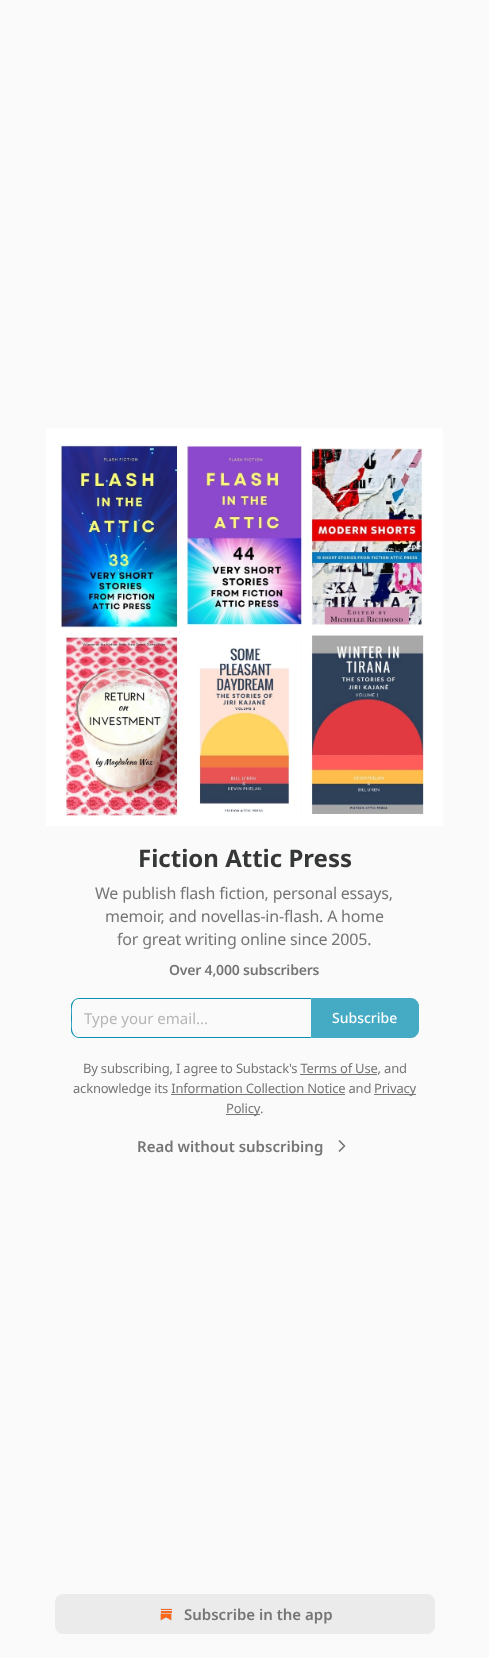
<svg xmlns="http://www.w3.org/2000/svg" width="489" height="1658">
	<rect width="100%" height="100%" fill="#FAFAFA" />
	<image x="46" y="428" width="397" height="398" href="assets/img1.png" />
	<text x="138" y="867" font-family="Noto Sans" font-size="24" font-weight="700" fill="#363737">Fiction Attic Press</text>
	<g font-family="Noto Sans" font-size="16" letter-spacing="-0.2" fill="#757575">
		<text x="95" y="899">We publish flash fiction, personal essays,</text>
		<text x="105" y="922">memoir, and novellas-in-flash. A home</text>
		<text x="117" y="945">for great writing online since 2005.</text>
	</g>
	<text x="169" y="975" font-family="Noto Sans" font-size="14" font-weight="600" letter-spacing="-0.2" fill="#757575">Over 4,000 subscribers</text>
	<path d="M79 998H311V1038H79C75 1038 71 1034 71 1030V1006C71 1002 75 998 79 998ZM79 999H311V1037H78C70 1035 72 1024 72 1018C72 1012 70 999 79 999Z" fill="#0891B2" fill-rule="evenodd" />
	<text x="84" y="1024" font-family="Noto Sans" font-size="15" fill="#B6B6B6">Type your email...</text>
	<path d="M311.5 998.5H411C415 998.5 418.5 1002 418.5 1006V1030C418.5 1034 415 1037.5 411 1037.5H311.5Z" fill="#45ABC4" stroke="#45ABC4" />
	<text x="332" y="1023" font-family="Noto Sans" font-size="14" font-weight="500" fill="#FEFEFE">Subscribe</text>
	<text x="83" y="1073" font-family="Noto Sans" font-size="13" letter-spacing="-0.2" fill="#757575">By subscribing, I agree to Substack's Terms of Use, and</text>
	<rect x="300" y="1074" width="77" height="1" fill="#777777" />
	<text x="73" y="1093" font-family="Noto Sans" font-size="13" letter-spacing="-0.2" fill="#757575">acknowledge its Information Collection Notice and</text>
	<rect x="374" y="1094" width="42" height="1" fill="#777777" />
	<text x="374" y="1093" font-family="Noto Sans" font-size="13" letter-spacing="-0.2" fill="#757575">Privacy</text>
	<rect x="171" y="1094" width="174" height="1" fill="#777777" />
	<rect x="226" y="1114" width="34" height="1" fill="#777777" />
	<g font-family="Noto Sans" font-size="13" letter-spacing="-0.2" fill="#757575">
		<text x="226" y="1113">Policy</text>
		<text x="260" y="1113">.</text>
	</g>
	<text x="137" y="1152" font-family="Noto Sans" font-size="15" font-weight="600" fill="#757575">Read without subscribing</text>
	<path d="M339.5 1151L344.5 1146L339.5 1141" fill="none" stroke="#757575" stroke-width="1.7" stroke-linecap="round" stroke-linejoin="round" />
	<rect x="55" y="1594" width="380" height="40" rx="8" fill="#EBEBEB" />
	<image x="160" y="1608" width="12" height="13" href="assets/img2.png" />
	<text x="184" y="1620" font-family="Noto Sans" font-size="15" font-weight="600" fill="#757575">Subscribe in the app</text>
</svg>
